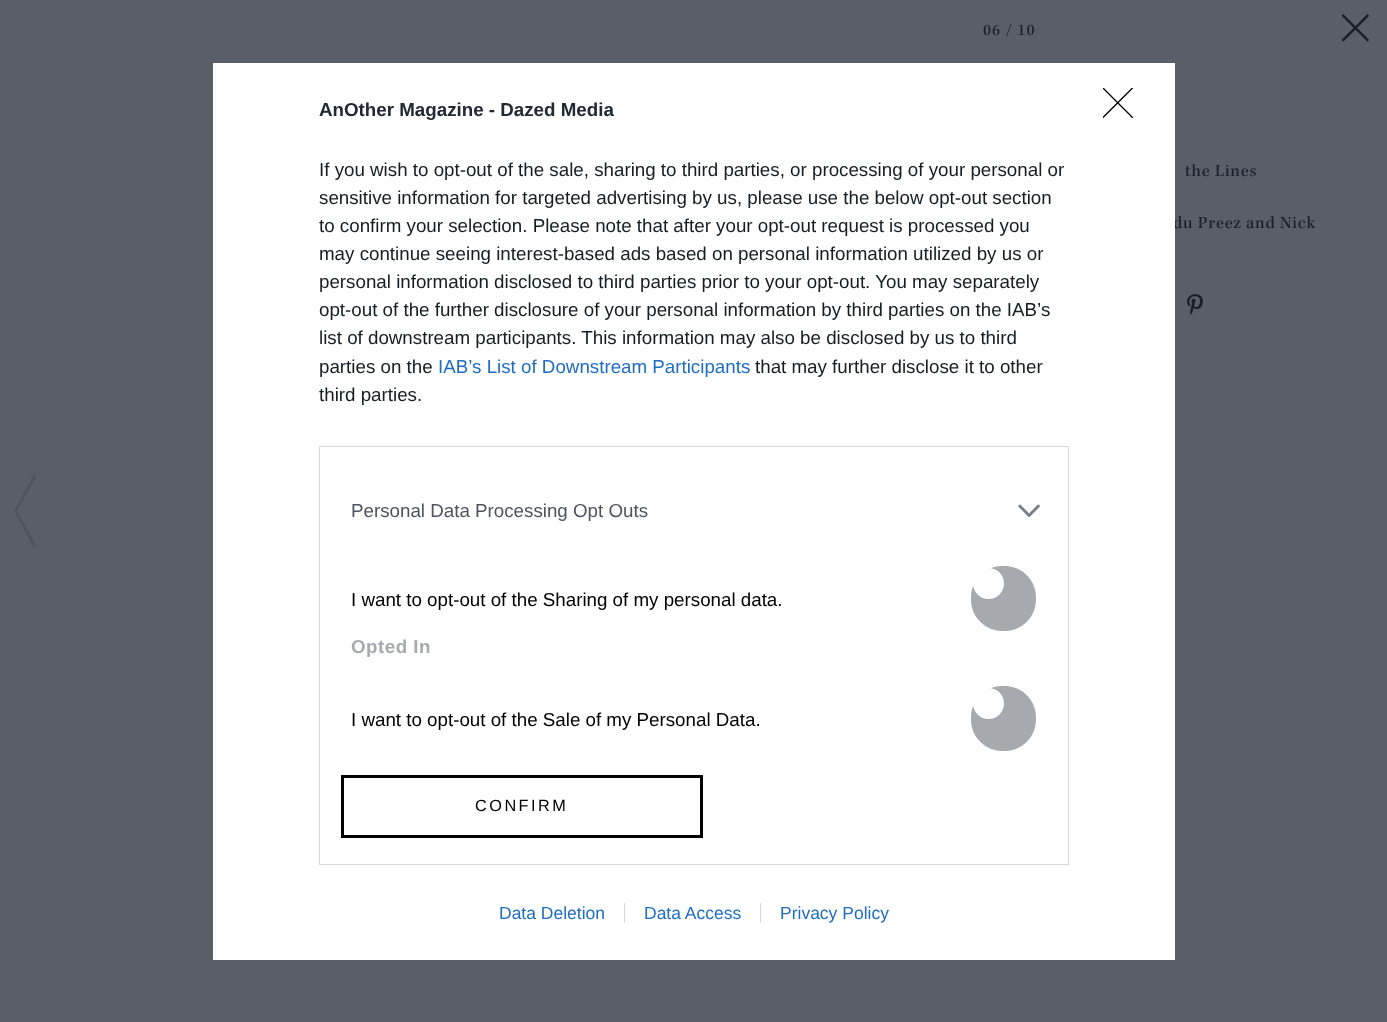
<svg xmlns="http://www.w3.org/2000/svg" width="1387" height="1022">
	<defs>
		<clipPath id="clip1"><rect x="1103" y="88" width="31" height="30" /></clipPath>
	</defs>
	<rect width="100%" height="100%" fill="#595F67" />
	<text x="1173" y="228" font-family="'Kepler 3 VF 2'" font-size="17.5" font-weight="500" letter-spacing="0.75" fill="#191F2B">du Preez and Nick</text>
	<rect x="213" y="63" width="962" height="897" fill="#FFFFFF" />
	<text x="319" y="116" font-family="Liberation Sans" font-size="18.75" font-weight="700" fill="#212934">AnOther Magazine - Dazed Media</text>
	<g font-family="Liberation Sans" font-size="18.75" fill="#141E23">
		<text x="319" y="176">If you wish to opt-out of the sale, sharing to third parties, or processing of your personal or</text>
		<text x="319" y="204">sensitive information for targeted advertising by us, please use the below opt-out section</text>
		<text x="319" y="232">to confirm your selection. Please note that after your opt-out request is processed you</text>
		<text x="319" y="260">may continue seeing interest-based ads based on personal information utilized by us or</text>
		<text x="319" y="288">personal information disclosed to third parties prior to your opt-out. You may separately</text>
		<text x="319" y="316">opt-out of the further disclosure of your personal information by third parties on the IAB’s</text>
		<text x="319" y="344">list of downstream participants. This information may also be disclosed by us to third</text>
		<text x="319" y="373">parties on the</text>
	</g>
	<text x="438" y="373" font-family="Liberation Sans" font-size="18.75" fill="#206DC5">IAB’s List of Downstream Participants</text>
	<g font-family="Liberation Sans" font-size="18.75" fill="#141E23">
		<text x="755" y="373">that may further disclose it to other</text>
		<text x="319" y="401">third parties.</text>
	</g>
	<rect x="319.5" y="446.5" width="749" height="418" fill="none" stroke="#D8D8D8" />
	<text x="351" y="517" font-family="Liberation Sans" font-size="18.75" fill="#4D545D">Personal Data Processing Opt Outs</text>
	<image x="1018" y="504" width="22" height="13" href="assets/img1.png" />
	<text x="351" y="606" font-family="Liberation Sans" font-size="18.75" fill="#000000">I want to opt-out of the Sharing of my personal data.</text>
	<rect x="971.5" y="566.5" width="64" height="64" rx="30.5" fill="#A6A9AE" stroke="#A6A9AE" />
	<circle cx="988.5" cy="583.5" r="15.5" fill="#FFFFFF" />
	<text x="351" y="653" font-family="Liberation Sans" font-size="18.75" font-weight="700" letter-spacing="0.5" fill="#A6A9AE">Opted In</text>
	<text x="351" y="726" font-family="Liberation Sans" font-size="18.75" fill="#000000">I want to opt-out of the Sale of my Personal Data.</text>
	<rect x="971.5" y="686.5" width="64" height="64" rx="30.5" fill="#A6A9AE" stroke="#A6A9AE" />
	<circle cx="988.5" cy="703.5" r="15.5" fill="#FFFFFF" />
	<rect x="342.5" y="776.5" width="359" height="60" fill="none" stroke="#000000" stroke-width="3" />
	<text x="475" y="811" font-family="Liberation Sans" font-size="16.25" letter-spacing="2.5" fill="#000000">CONFIRM</text>
	<g clip-path="url(#clip1)">
		<path d="M1103 88L1132.5 117.5M1132.5 88L1103 117.5" fill="none" stroke="#000000" stroke-width="1.3" stroke-linecap="round" stroke-linejoin="round" />
	</g>
	<g font-family="Liberation Sans" font-size="17.5" fill="#206DC5">
		<text x="499" y="919">Data Deletion</text>
		<text x="644" y="919">Data Access</text>
	</g>
	<rect x="624" y="903" width="1" height="20" fill="#D8D8D8" />
	<text x="780" y="919" font-family="Liberation Sans" font-size="17.5" fill="#206DC5">Privacy Policy</text>
	<rect x="760" y="903" width="1" height="20" fill="#D8D8D8" />
	<text x="983" y="35" font-family="'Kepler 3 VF'" font-size="16.25" font-weight="500" letter-spacing="1" fill="#191F2B">06 / 10</text>
	<image x="1341" y="14" width="29" height="28" href="assets/img2.png" />
	<text x="1185" y="176" font-family="'Kepler 3 VF 2'" font-size="17.5" font-weight="500" letter-spacing="0.75" fill="#191F2B">the Lines</text>
	<image x="1187" y="294" width="16" height="21" href="assets/img3.png" />
	<path d="M17 511L36 545L34 548L14 511L34 474L36 477Z" fill="#4E545D" />
</svg>
